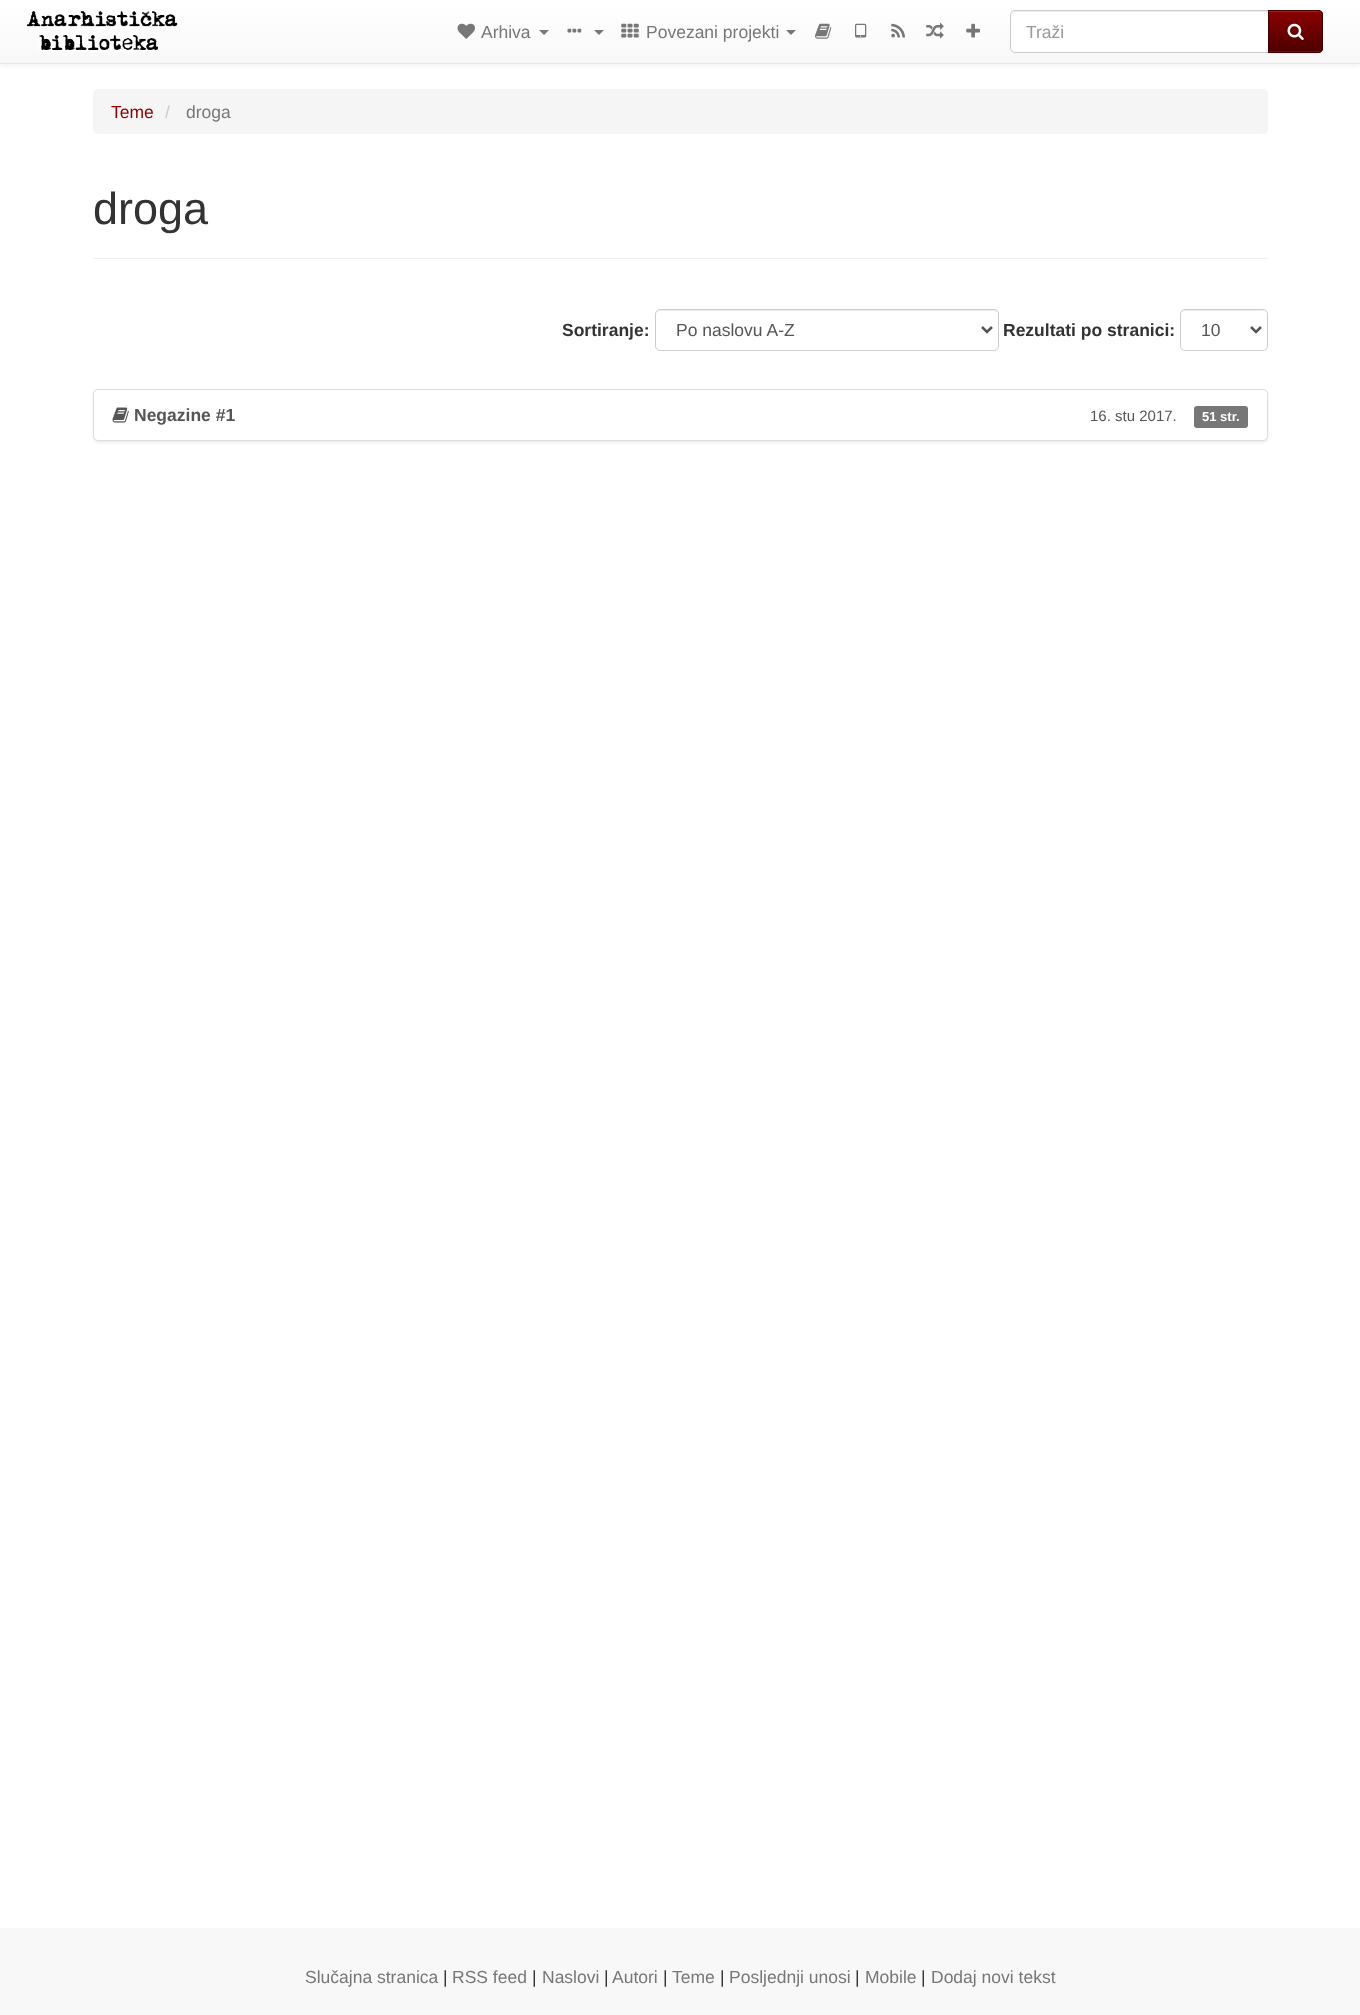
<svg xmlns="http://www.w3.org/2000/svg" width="1360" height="2015">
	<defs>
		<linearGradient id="g1" gradientUnits="userSpaceOnUse" x1="680" y1="0" x2="680" y2="63"><stop offset="0" stop-color="#FFFFFF" /><stop offset="1" stop-color="#F8F8F8" /></linearGradient>
		<clipPath id="clip1"><path d="M1268 10H1318C1321 10 1323 12 1323 15V48C1323 51 1321 53 1318 53H1268Z" /></clipPath>
		<linearGradient id="g2" gradientUnits="userSpaceOnUse" x1="1295" y1="11" x2="1295" y2="51"><stop offset="0" stop-color="#8B0000" /><stop offset="1" stop-color="#4E0000" /></linearGradient>
	</defs>
	<rect width="100%" height="100%" fill="#FFFFFF" />
	<rect x="0" y="1" width="1360" height="64" fill="#000000" fill-opacity="0.07" filter="blur(3px)" />
	<rect x="0" y="0" width="1360" height="63" fill="url(#g1)" />
	<rect x="0" y="63" width="1360" height="1" fill="#E7E7E7" />
	<image x="27" y="11" width="151" height="41" href="assets/img1.png" />
	<image x="457" y="23" width="18" height="16" href="assets/img2.png" />
	<text x="481" y="38" font-family="Liberation Sans" font-size="17.5" fill="#777777">Arhiva</text>
	<path d="M539 30H549L544 35Z" fill="#777777" />
	<image x="567" y="28" width="15" height="5" href="assets/img3.png" />
	<path d="M594 30H604L599 35Z" fill="#777777" />
	<image x="621" y="23" width="18" height="15" href="assets/img4.png" />
	<text x="646" y="38" font-family="Liberation Sans" font-size="17.5" fill="#777777">Povezani projekti</text>
	<path d="M786 30H796L791 35Z" fill="#777777" />
	<image x="815" y="23" width="17" height="16" href="assets/img5.png" />
	<image x="855" y="23" width="12" height="15" href="assets/img6.png" />
	<image x="891" y="23" width="14" height="15" href="assets/img7.png" />
	<image x="926" y="22" width="18" height="17" href="assets/img8.png" />
	<image x="966" y="23" width="14" height="15" href="assets/img9.png" />
	<path d="M1015 10H1269V53H1015C1012 53 1010 51 1010 48V15C1010 12 1012 10 1015 10Z" fill="#FFFFFF" />
	<path d="M1015 12H1268V11H1015C1013 11 1011 13 1011 15V16C1011 14 1013 12 1015 12Z" fill="#ECECEC" />
	<path d="M1015 10.5H1268.5V52.5H1015C1012.5 52.5 1010.5 50.5 1010.5 48V15C1010.5 12.5 1012.5 10.5 1015 10.5Z" fill="none" stroke="#CCCCCC" />
	<text x="1026" y="38" font-family="Liberation Sans" font-size="17.5" fill="#999999">Traži</text>
	<rect x="1268" y="11" width="55" height="43" rx="5" fill="#000000" fill-opacity="0.07" filter="blur(0.5px)" />
	<path d="M1268 10H1318C1321 10 1323 12 1323 15V48C1323 51 1321 53 1318 53H1268Z" fill="#8B0000" />
	<g clip-path="url(#clip1)">
		<rect x="1269" y="11" width="54" height="40" fill="url(#g2)" />
	</g>
	<path d="M1269 12H1318C1320 12 1321 14 1321 16V15C1321 13 1319 11 1317 11H1269Z" fill="#9C2626" />
	<path d="M1268.5 10.5H1318C1320.5 10.5 1322.5 12.5 1322.5 15V48C1322.5 50.5 1320.5 52.5 1318 52.5H1268.5Z" fill="none" stroke="#440000" />
	<image x="1287" y="23" width="17" height="17" href="assets/img10.png" />
	<rect x="93" y="89" width="1175" height="45" rx="5" fill="#F5F5F5" />
	<text x="111" y="118" font-family="Liberation Sans" font-size="17.5" fill="#8B0000">Teme</text>
	<text x="165" y="118" font-family="Liberation Sans" font-size="17.5" fill="#CCCCCC">/</text>
	<text x="186" y="118" font-family="Liberation Sans" font-size="17.5" fill="#777777">droga</text>
	<rect x="93" y="258" width="1175" height="1" fill="#EEEEEE" />
	<text x="93" y="224" font-family="Liberation Sans" font-size="45" fill="#333333">droga</text>
	<text x="562" y="336" font-family="Liberation Sans" font-size="17.5" font-weight="700" fill="#333333">Sortiranje:</text>
	<path d="M660 311H994C996 311 998 313 998 315V314C998 312 996 310 994 310H660C658 310 656 312 656 314V315C656 313 658 311 660 311Z" fill="#ECECEC" />
	<rect x="655.5" y="309.5" width="343" height="41" rx="4.5" fill="none" stroke="#CCCCCC" />
	<path d="M982 327L987 332L992 327" fill="none" stroke="#555555" stroke-width="2.5" />
	<text x="676" y="336" font-family="Liberation Sans" font-size="17.5" fill="#555555">Po naslovu A-Z</text>
	<text x="1003" y="336" font-family="Liberation Sans" font-size="17.5" font-weight="700" fill="#333333">Rezultati po stranici:</text>
	<path d="M1185 311H1262C1265 311 1266 313 1266 315C1266 307 1254 310 1249 310H1198C1193 310 1181 307 1181 315C1181 313 1183 311 1185 311Z" fill="#ECECEC" />
	<rect x="1180.5" y="309.5" width="87" height="41" rx="4.5" fill="none" stroke="#CCCCCC" />
	<path d="M1251 327L1256 332L1261 327" fill="none" stroke="#555555" stroke-width="2.5" />
	<text x="1201" y="336" font-family="Liberation Sans" font-size="17.5" fill="#555555">10</text>
	<rect x="93" y="390" width="1175" height="53" rx="5" fill="#000000" fill-opacity="0.07" filter="blur(1px)" />
	<rect x="93.5" y="389.5" width="1174" height="51" rx="4.5" fill="#FFFFFF" stroke="#DDDDDD" />
	<image x="112" y="407" width="17" height="16" href="assets/img11.png" />
	<text x="134" y="421" font-family="Liberation Sans" font-size="17.5" font-weight="700" fill="#555555">Negazine #1</text>
	<text x="1090" y="421" font-family="Liberation Sans" font-size="15" fill="#555555">16. stu 2017.</text>
	<rect x="1194" y="406" width="54" height="22" rx="3" fill="#777777" />
	<text x="1202" y="421" font-family="Liberation Sans" font-size="13" font-weight="700" fill="#FFFFFF">51 str.</text>
	<rect x="0" y="1928" width="1360" height="87" fill="#F8F8F8" />
	<text x="305" y="1983" font-family="Liberation Sans" font-size="17.5" fill="#777777">Slučajna stranica</text>
	<text x="443" y="1983" font-family="Liberation Sans" font-size="17.5" fill="#333333">|</text>
	<text x="452" y="1983" font-family="Liberation Sans" font-size="17.5" fill="#777777">RSS feed</text>
	<text x="532" y="1983" font-family="Liberation Sans" font-size="17.5" fill="#333333">|</text>
	<text x="542" y="1983" font-family="Liberation Sans" font-size="17.5" fill="#777777">Naslovi</text>
	<text x="604" y="1983" font-family="Liberation Sans" font-size="17.5" fill="#333333">|</text>
	<text x="612" y="1983" font-family="Liberation Sans" font-size="17.5" fill="#777777">Autori</text>
	<text x="663" y="1983" font-family="Liberation Sans" font-size="17.5" fill="#333333">|</text>
	<text x="672" y="1983" font-family="Liberation Sans" font-size="17.5" fill="#777777">Teme</text>
	<text x="720" y="1983" font-family="Liberation Sans" font-size="17.5" fill="#333333">|</text>
	<text x="729" y="1983" font-family="Liberation Sans" font-size="17.5" fill="#777777">Posljednji unosi</text>
	<text x="855" y="1983" font-family="Liberation Sans" font-size="17.5" fill="#333333">|</text>
	<text x="865" y="1983" font-family="Liberation Sans" font-size="17.5" fill="#777777">Mobile</text>
	<text x="921" y="1983" font-family="Liberation Sans" font-size="17.5" fill="#333333">|</text>
	<text x="931" y="1983" font-family="Liberation Sans" font-size="17.5" fill="#777777">Dodaj novi tekst</text>
</svg>
